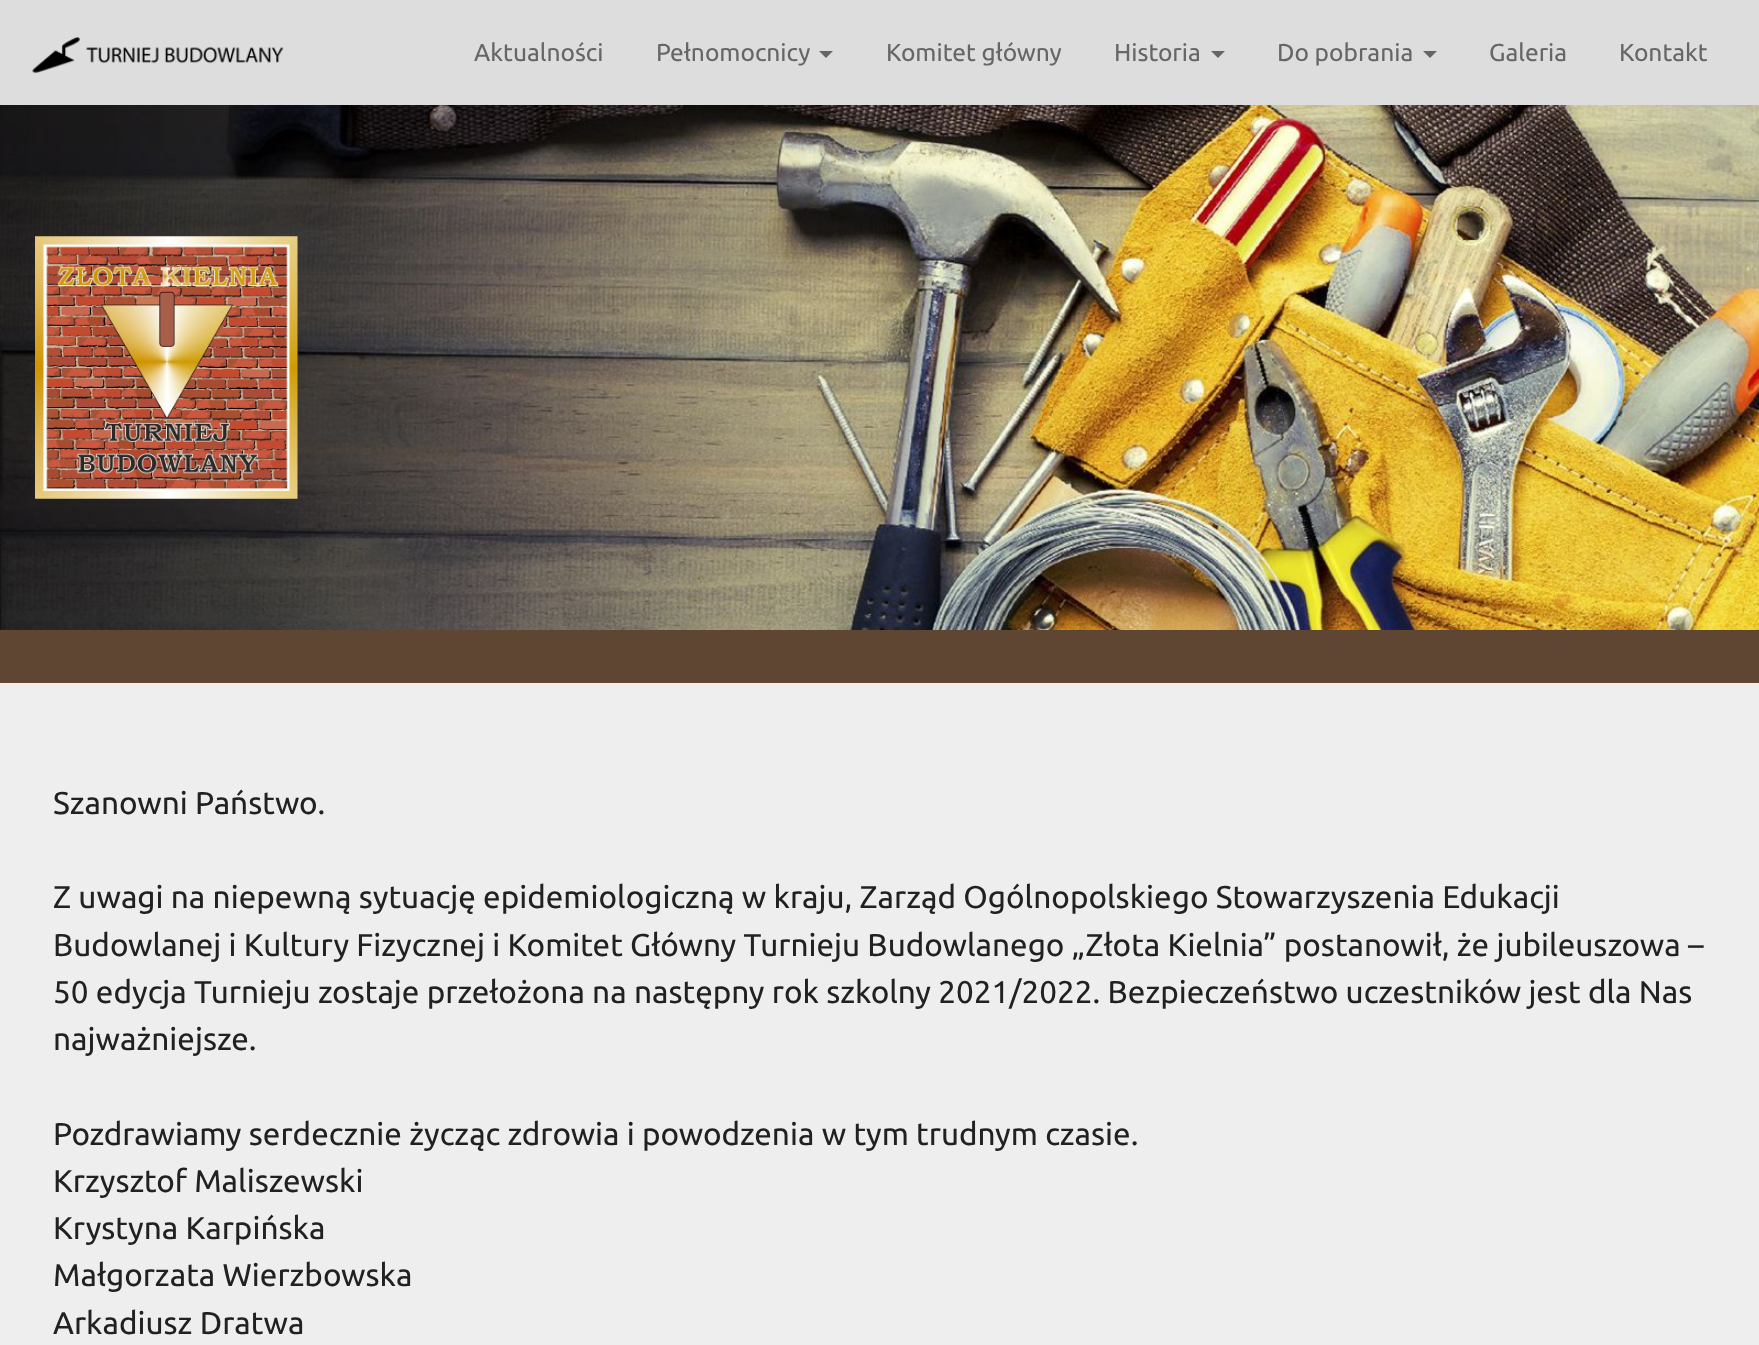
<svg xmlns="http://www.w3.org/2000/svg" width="1759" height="1345">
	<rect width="100%" height="100%" fill="#5F4632" />
	<rect x="0" y="0" width="1759" height="105" fill="#DDDDDD" />
	<image x="32" y="37" width="252" height="36" href="assets/img1.png" />
	<g font-family="Ubuntu" font-size="24.5" fill="#666666">
		<text x="474" y="61">Aktualności</text>
		<text x="656" y="61">Pełnomocnicy</text>
	</g>
	<path d="M819 51H833L826 58Z" fill="#666666" />
	<g font-family="Ubuntu" font-size="24.5" fill="#666666">
		<text x="886" y="61">Komitet główny</text>
		<text x="1114" y="61">Historia</text>
	</g>
	<path d="M1211 51H1225L1218 58Z" fill="#666666" />
	<text x="1277" y="61" font-family="Ubuntu" font-size="24.5" fill="#666666">Do pobrania</text>
	<path d="M1423 51H1437L1430 58Z" fill="#666666" />
	<g font-family="Ubuntu" font-size="24.5" fill="#666666">
		<text x="1489" y="61">Galeria</text>
		<text x="1619" y="61">Kontakt</text>
	</g>
	<image x="0" y="105" width="1759" height="525" href="assets/img2.png" />
	<image x="35" y="236" width="263" height="263" href="assets/img3.png" />
	<rect x="0" y="683" width="1759" height="662" fill="#EEEEEE" />
	<g font-family="Ubuntu" font-size="31.5" fill="#212121">
		<text x="53" y="814">Szanowni Państwo.</text>
		<text x="53" y="908">Z uwagi na niepewną sytuację epidemiologiczną w kraju, Zarząd Ogólnopolskiego Stowarzyszenia Edukacji</text>
		<text x="53" y="956">Budowlanej i Kultury Fizycznej i Komitet Główny Turnieju Budowlanego „Złota Kielnia” postanowił, że jubileuszowa –</text>
		<text x="53" y="1003">50 edycja Turnieju zostaje przełożona na następny rok szkolny 2021/2022. Bezpieczeństwo uczestników jest dla Nas</text>
		<text x="53" y="1050">najważniejsze.</text>
		<text x="53" y="1145">Pozdrawiamy serdecznie życząc zdrowia i powodzenia w tym trudnym czasie.</text>
		<text x="53" y="1192">Krzysztof Maliszewski</text>
		<text x="53" y="1239">Krystyna Karpińska</text>
		<text x="53" y="1286">Małgorzata Wierzbowska</text>
		<text x="53" y="1334">Arkadiusz Dratwa</text>
	</g>
</svg>
